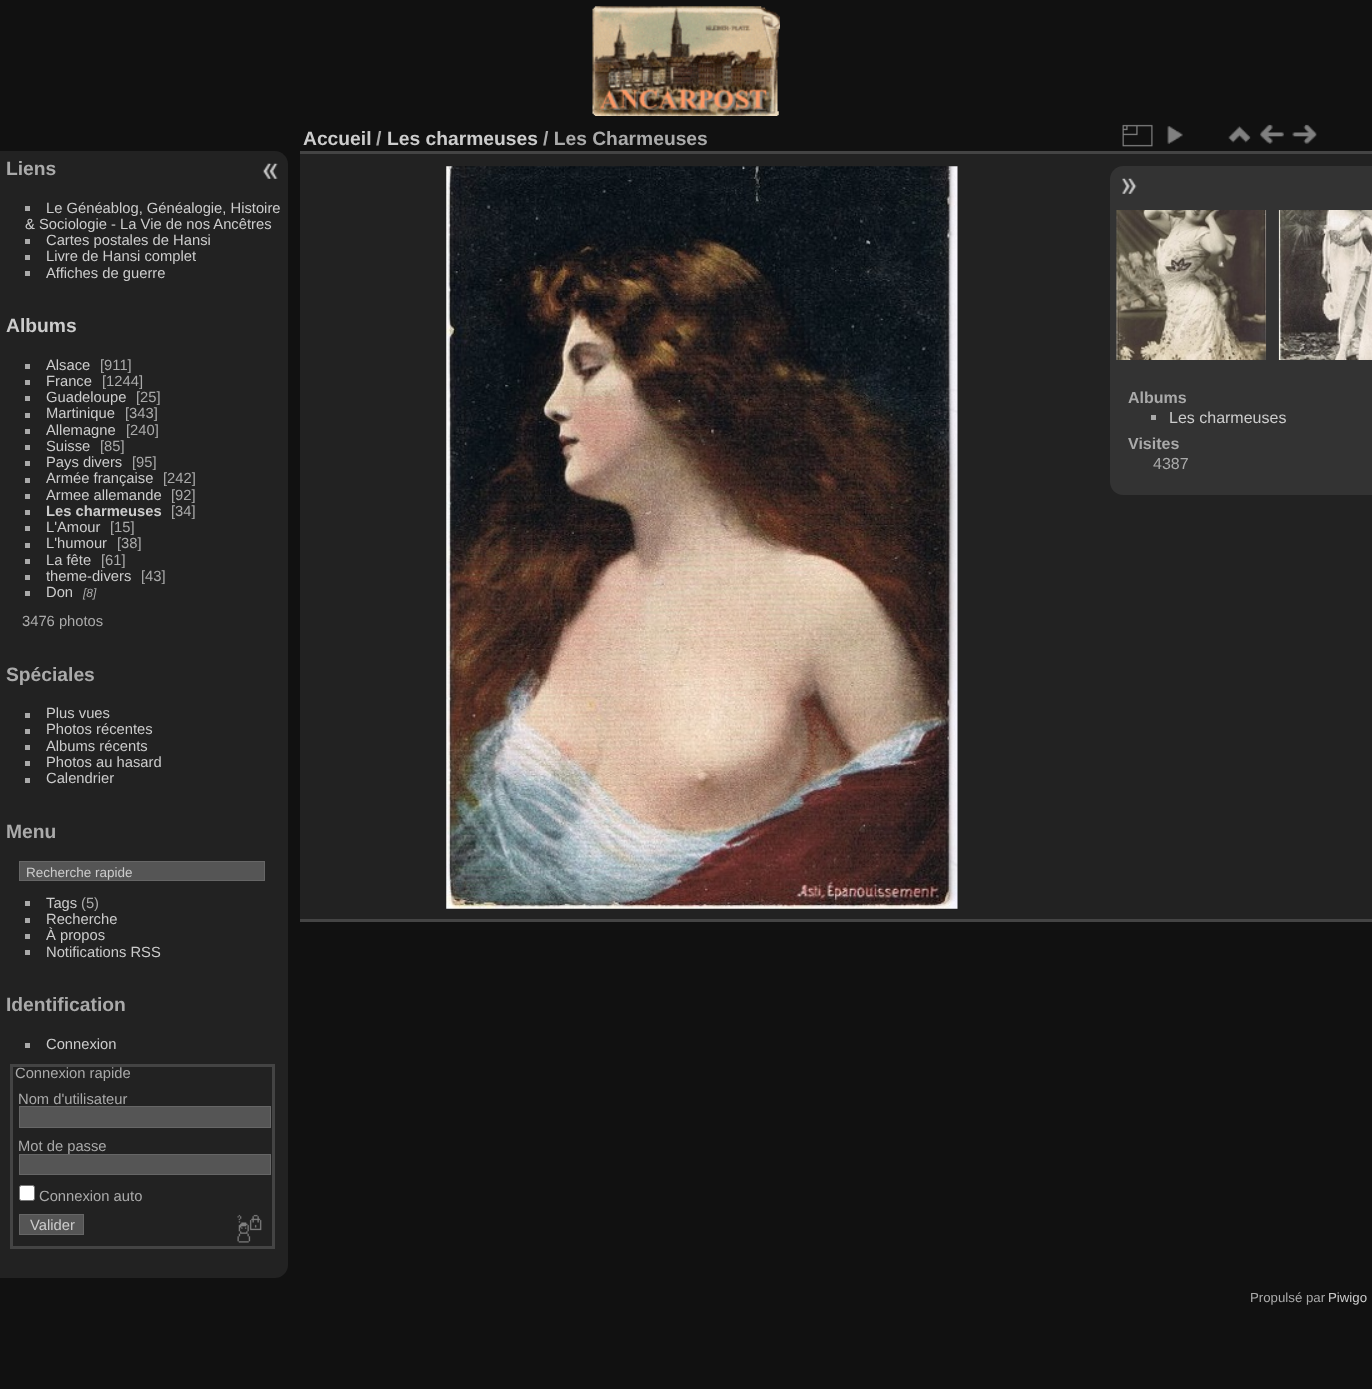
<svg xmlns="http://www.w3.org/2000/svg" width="1372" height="1389">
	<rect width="100%" height="100%" fill="#111111" />
	<image x="592" y="6" width="188" height="110" href="assets/img1.png" />
	<path d="M0 151H275C282 151 288 157 288 164V1265C288 1272 282 1278 275 1278H0Z" fill="#222222" />
	<text x="6" y="175" font-family="Liberation Sans" font-size="19.25" font-weight="700" fill="#AAAAAA">Liens</text>
	<rect x="25" y="206" width="5" height="5" fill="#AAAAAA" />
	<g font-family="Liberation Sans" font-size="14.75" fill="#CCCCCC">
		<text x="46" y="213">Le Généablog, Généalogie, Histoire</text>
		<text x="25" y="229">&amp; Sociologie - La Vie de nos Ancêtres</text>
	</g>
	<rect x="25" y="239" width="5" height="5" fill="#AAAAAA" />
	<text x="46" y="245" font-family="Liberation Sans" font-size="14.75" fill="#CCCCCC">Cartes postales de Hansi</text>
	<rect x="25" y="255" width="5" height="5" fill="#AAAAAA" />
	<text x="46" y="261" font-family="Liberation Sans" font-size="14.75" fill="#CCCCCC">Livre de Hansi complet</text>
	<rect x="25" y="271" width="5" height="5" fill="#AAAAAA" />
	<text x="46" y="278" font-family="Liberation Sans" font-size="14.75" fill="#CCCCCC">Affiches de guerre</text>
	<text x="6" y="332" font-family="Liberation Sans" font-size="19.25" font-weight="700" fill="#CCCCCC">Albums</text>
	<rect x="25" y="364" width="5" height="5" fill="#AAAAAA" />
	<text x="46" y="370" font-family="Liberation Sans" font-size="14.75" fill="#CCCCCC">Alsace</text>
	<text x="100" y="370" font-family="Liberation Sans" font-size="14.75" fill="#AAAAAA">[911]</text>
	<rect x="25" y="380" width="5" height="5" fill="#AAAAAA" />
	<text x="46" y="386" font-family="Liberation Sans" font-size="14.75" fill="#CCCCCC">France</text>
	<text x="102" y="386" font-family="Liberation Sans" font-size="14.75" fill="#AAAAAA">[1244]</text>
	<rect x="25" y="396" width="5" height="5" fill="#AAAAAA" />
	<text x="46" y="402" font-family="Liberation Sans" font-size="14.75" fill="#CCCCCC">Guadeloupe</text>
	<text x="136" y="402" font-family="Liberation Sans" font-size="14.75" fill="#AAAAAA">[25]</text>
	<rect x="25" y="413" width="5" height="5" fill="#AAAAAA" />
	<text x="46" y="418" font-family="Liberation Sans" font-size="14.75" fill="#CCCCCC">Martinique</text>
	<text x="125" y="418" font-family="Liberation Sans" font-size="14.75" fill="#AAAAAA">[343]</text>
	<rect x="25" y="429" width="5" height="5" fill="#AAAAAA" />
	<text x="46" y="435" font-family="Liberation Sans" font-size="14.75" fill="#CCCCCC">Allemagne</text>
	<text x="126" y="435" font-family="Liberation Sans" font-size="14.75" fill="#AAAAAA">[240]</text>
	<rect x="25" y="445" width="5" height="5" fill="#AAAAAA" />
	<text x="46" y="451" font-family="Liberation Sans" font-size="14.75" fill="#CCCCCC">Suisse</text>
	<text x="100" y="451" font-family="Liberation Sans" font-size="14.75" fill="#AAAAAA">[85]</text>
	<rect x="25" y="461" width="5" height="5" fill="#AAAAAA" />
	<text x="46" y="467" font-family="Liberation Sans" font-size="14.75" fill="#CCCCCC">Pays divers</text>
	<text x="132" y="467" font-family="Liberation Sans" font-size="14.75" fill="#AAAAAA">[95]</text>
	<rect x="25" y="478" width="5" height="5" fill="#AAAAAA" />
	<text x="46" y="483" font-family="Liberation Sans" font-size="14.75" fill="#CCCCCC">Armée française</text>
	<text x="163" y="483" font-family="Liberation Sans" font-size="14.75" fill="#AAAAAA">[242]</text>
	<rect x="25" y="494" width="5" height="5" fill="#AAAAAA" />
	<text x="46" y="500" font-family="Liberation Sans" font-size="14.75" fill="#CCCCCC">Armee allemande</text>
	<text x="171" y="500" font-family="Liberation Sans" font-size="14.75" fill="#AAAAAA">[92]</text>
	<rect x="25" y="510" width="5" height="5" fill="#AAAAAA" />
	<text x="46" y="516" font-family="Liberation Sans" font-size="14.75" font-weight="700" fill="#CCCCCC">Les charmeuses</text>
	<text x="171" y="516" font-family="Liberation Sans" font-size="14.75" fill="#AAAAAA">[34]</text>
	<rect x="25" y="526" width="5" height="5" fill="#AAAAAA" />
	<text x="46" y="532" font-family="Liberation Sans" font-size="14.75" fill="#CCCCCC">L'Amour</text>
	<text x="110" y="532" font-family="Liberation Sans" font-size="14.75" fill="#AAAAAA">[15]</text>
	<rect x="25" y="543" width="5" height="5" fill="#AAAAAA" />
	<text x="46" y="548" font-family="Liberation Sans" font-size="14.75" fill="#CCCCCC">L'humour</text>
	<text x="117" y="548" font-family="Liberation Sans" font-size="14.75" fill="#AAAAAA">[38]</text>
	<rect x="25" y="559" width="5" height="5" fill="#AAAAAA" />
	<text x="46" y="565" font-family="Liberation Sans" font-size="14.75" fill="#CCCCCC">La fête</text>
	<text x="101" y="565" font-family="Liberation Sans" font-size="14.75" fill="#AAAAAA">[61]</text>
	<rect x="25" y="575" width="5" height="5" fill="#AAAAAA" />
	<text x="46" y="581" font-family="Liberation Sans" font-size="14.75" fill="#CCCCCC">theme-divers</text>
	<text x="141" y="581" font-family="Liberation Sans" font-size="14.75" fill="#AAAAAA">[43]</text>
	<rect x="25" y="591" width="5" height="5" fill="#AAAAAA" />
	<text x="46" y="597" font-family="Liberation Sans" font-size="14.75" fill="#CCCCCC">Don</text>
	<text x="83" y="597" font-family="Liberation Sans" font-size="12" font-style="italic" fill="#AAAAAA">[8]</text>
	<text x="22" y="626" font-family="Liberation Sans" font-size="14.75" fill="#AAAAAA">3476 photos</text>
	<text x="6" y="681" font-family="Liberation Sans" font-size="19.25" font-weight="700" fill="#AAAAAA">Spéciales</text>
	<rect x="25" y="713" width="5" height="5" fill="#AAAAAA" />
	<text x="46" y="718" font-family="Liberation Sans" font-size="14.75" fill="#CCCCCC">Plus vues</text>
	<rect x="25" y="729" width="5" height="5" fill="#AAAAAA" />
	<text x="46" y="734" font-family="Liberation Sans" font-size="14.75" fill="#CCCCCC">Photos récentes</text>
	<rect x="25" y="745" width="5" height="5" fill="#AAAAAA" />
	<text x="46" y="751" font-family="Liberation Sans" font-size="14.75" fill="#CCCCCC">Albums récents</text>
	<rect x="25" y="761" width="5" height="5" fill="#AAAAAA" />
	<text x="46" y="767" font-family="Liberation Sans" font-size="14.75" fill="#CCCCCC">Photos au hasard</text>
	<rect x="25" y="778" width="5" height="5" fill="#AAAAAA" />
	<text x="46" y="783" font-family="Liberation Sans" font-size="14.75" fill="#CCCCCC">Calendrier</text>
	<text x="6" y="838" font-family="Liberation Sans" font-size="19.25" font-weight="700" fill="#AAAAAA">Menu</text>
	<rect x="19.5" y="861.5" width="245" height="19" fill="#555555" stroke="#666666" />
	<text x="26" y="877" font-family="Liberation Sans" font-size="13.5" fill="#CCCCCC">Recherche rapide</text>
	<rect x="25" y="901" width="5" height="5" fill="#AAAAAA" />
	<text x="46" y="908" font-family="Liberation Sans" font-size="14.75" fill="#CCCCCC">Tags</text>
	<text x="81" y="908" font-family="Liberation Sans" font-size="14.75" fill="#AAAAAA">(5)</text>
	<rect x="25" y="918" width="5" height="5" fill="#AAAAAA" />
	<text x="46" y="924" font-family="Liberation Sans" font-size="14.75" fill="#CCCCCC">Recherche</text>
	<rect x="25" y="934" width="5" height="5" fill="#AAAAAA" />
	<text x="46" y="940" font-family="Liberation Sans" font-size="14.75" fill="#CCCCCC">À propos</text>
	<rect x="25" y="950" width="5" height="5" fill="#AAAAAA" />
	<text x="46" y="957" font-family="Liberation Sans" font-size="14.75" fill="#CCCCCC">Notifications RSS</text>
	<text x="6" y="1011" font-family="Liberation Sans" font-size="19.25" font-weight="700" fill="#AAAAAA">Identification</text>
	<rect x="25" y="1043" width="5" height="5" fill="#AAAAAA" />
	<text x="46" y="1049" font-family="Liberation Sans" font-size="14.75" fill="#CCCCCC">Connexion</text>
	<rect x="11.5" y="1065.5" width="262" height="182" fill="none" stroke="#444444" stroke-width="3" />
	<g font-family="Liberation Sans" font-size="14.75" fill="#AAAAAA">
		<text x="15" y="1078">Connexion rapide</text>
		<text x="18" y="1104">Nom d'utilisateur</text>
	</g>
	<rect x="19.5" y="1106.5" width="251" height="21" fill="#555555" stroke="#666666" />
	<text x="18" y="1151" font-family="Liberation Sans" font-size="14.75" fill="#AAAAAA">Mot de passe</text>
	<rect x="19.5" y="1154.5" width="251" height="20" fill="#555555" stroke="#666666" />
	<rect x="19.5" y="1185.5" width="15" height="15" rx="2" fill="#FFFFFF" stroke="#767676" />
	<text x="39" y="1201" font-family="Liberation Sans" font-size="14.75" fill="#AAAAAA">Connexion auto</text>
	<rect x="19.5" y="1214.5" width="64" height="20" fill="#555555" stroke="#666666" />
	<text x="30" y="1230" font-family="Liberation Sans" font-size="14.75" fill="#CCCCCC">Valider</text>
	<image x="237" y="1214" width="25" height="29" href="assets/img2.png" />
	<rect x="300" y="154" width="1072" height="765" fill="#222222" />
	<rect x="300" y="919" width="1072" height="3" fill="#444444" />
	<rect x="300" y="151" width="1072" height="3" fill="#444444" />
	<text x="303" y="145" font-family="Liberation Sans" font-size="19.25" font-weight="700" fill="#CCCCCC">Accueil</text>
	<text x="376" y="145" font-family="Liberation Sans" font-size="19.25" font-weight="700" fill="#AAAAAA">/</text>
	<text x="387" y="145" font-family="Liberation Sans" font-size="19.25" font-weight="700" fill="#CCCCCC">Les charmeuses</text>
	<text x="543" y="145" font-family="Liberation Sans" font-size="19.25" font-weight="700" fill="#AAAAAA">/ Les Charmeuses</text>
	<image x="1122" y="124" width="31" height="23" href="assets/img3.png" />
	<image x="1167" y="126" width="16" height="18" href="assets/img4.png" />
	<image x="1228" y="126" width="23" height="17" href="assets/img5.png" />
	<image x="1260" y="124" width="24" height="20" href="assets/img6.png" />
	<image x="1292" y="124" width="25" height="20" href="assets/img7.png" />
	<image x="446" y="166" width="512" height="743" href="assets/img8.png" />
	<path d="M1123 166H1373V495H1123C1116 495 1110 489 1110 482V179C1110 172 1116 166 1123 166Z" fill="#333333" />
	<image x="1122" y="178" width="15" height="16" href="assets/img9.png" />
	<image x="1116" y="210" width="151" height="150" href="assets/img10.png" />
	<image x="1278" y="210" width="94" height="150" href="assets/img11.png" />
	<text x="1128" y="403" font-family="Liberation Sans" font-size="16" font-weight="700" fill="#AAAAAA">Albums</text>
	<rect x="1151" y="415" width="5" height="5" fill="#AAAAAA" />
	<text x="1169" y="423" font-family="Liberation Sans" font-size="16" fill="#CCCCCC">Les charmeuses</text>
	<text x="1128" y="449" font-family="Liberation Sans" font-size="16" font-weight="700" fill="#AAAAAA">Visites</text>
	<text x="1153" y="469" font-family="Liberation Sans" font-size="16" fill="#AAAAAA">4387</text>
	<image x="262" y="163" width="16" height="16" href="assets/img12.png" />
	<text x="1250" y="1302" font-family="Liberation Sans" font-size="13.25" fill="#AAAAAA">Propulsé par</text>
	<text x="1328" y="1302" font-family="Liberation Sans" font-size="13.25" fill="#CCCCCC">Piwigo</text>
</svg>
